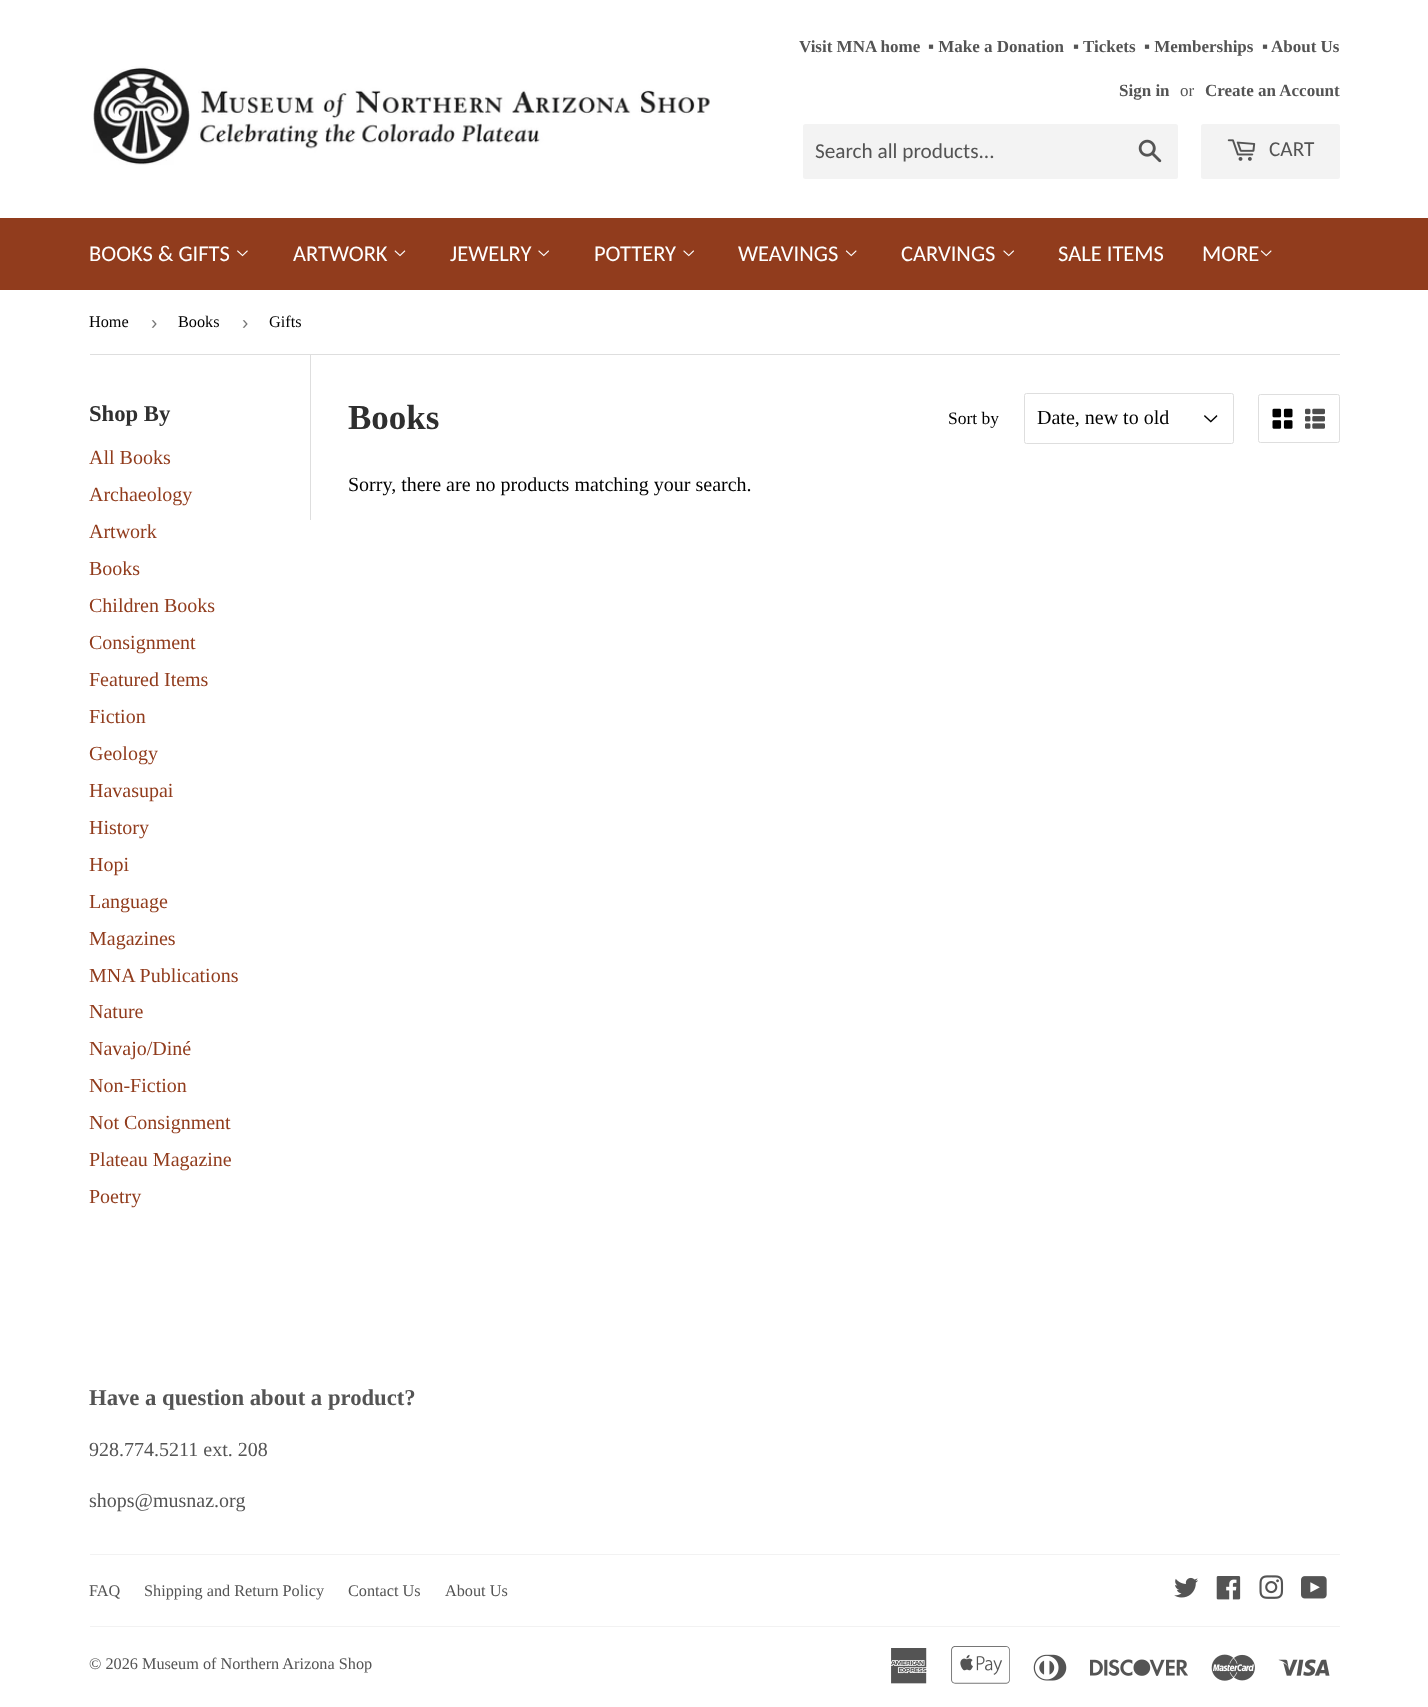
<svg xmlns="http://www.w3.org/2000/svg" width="1428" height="1707">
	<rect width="100%" height="100%" fill="#FFFFFF" />
	<image x="93" y="66" width="617" height="99" href="assets/img1.png" />
	<g font-family="Liberation Serif" font-size="17" font-weight="700" fill="#545454">
		<text x="799" y="52">Visit MNA home</text>
		<text x="928" y="52">▪ Make a Donation</text>
		<text x="1073" y="52">▪ Tickets</text>
		<text x="1144" y="52">▪ Memberships</text>
		<text x="1262" y="52">▪</text>
		<text x="1271" y="52">About Us</text>
		<text x="1119" y="96">Sign in</text>
	</g>
	<text x="1180" y="96" font-family="Liberation Serif" font-size="17" fill="#545454">or</text>
	<text x="1205" y="96" font-family="Liberation Serif" font-size="17" font-weight="700" fill="#545454">Create an Account</text>
	<rect x="803" y="124" width="375" height="55" rx="2.5" fill="#F3F3F3" />
	<text x="815" y="158" font-family="Carlito" font-size="21.25" fill="#545454">Search all products...</text>
	<image x="1138" y="139" width="24" height="24" href="assets/img2.png" />
	<rect x="1201" y="124" width="139" height="55" rx="2.5" fill="#F3F3F3" />
	<image x="1227" y="139" width="29" height="22" href="assets/img3.png" />
	<text x="1269" y="156" font-family="Carlito" font-size="21.25" fill="#545454">CART</text>
	<rect x="0" y="218" width="1428" height="72" fill="#913C1D" />
	<text x="89" y="261" font-family="Carlito" font-size="22.5" fill="#FFFFFF">BOOKS &amp; GIFTS</text>
	<image x="237" y="250" width="11" height="7" href="assets/img4.png" />
	<text x="293" y="261" font-family="Carlito" font-size="22.5" fill="#FFFFFF">ARTWORK</text>
	<image x="394" y="250" width="12" height="7" href="assets/img5.png" />
	<text x="450" y="261" font-family="Carlito" font-size="22.5" fill="#FFFFFF">JEWELRY</text>
	<image x="538" y="250" width="11" height="7" href="assets/img6.png" />
	<text x="594" y="261" font-family="Carlito" font-size="22.5" fill="#FFFFFF">POTTERY</text>
	<image x="683" y="250" width="11" height="7" href="assets/img6.png" />
	<text x="738" y="261" font-family="Carlito" font-size="22.5" fill="#FFFFFF">WEAVINGS</text>
	<image x="845" y="250" width="12" height="7" href="assets/img7.png" />
	<text x="901" y="261" font-family="Carlito" font-size="22.5" fill="#FFFFFF">CARVINGS</text>
	<image x="1003" y="250" width="11" height="7" href="assets/img6.png" />
	<g font-family="Carlito" font-size="22.5" fill="#FFFFFF">
		<text x="1058" y="261">SALE ITEMS</text>
		<text x="1202" y="261">MORE</text>
	</g>
	<image x="1260" y="250" width="12" height="7" href="assets/img7.png" />
	<rect x="90" y="354" width="1250" height="1" fill="#DEDEDE" />
	<text x="89" y="327" font-family="Liberation Serif" font-size="16.25" fill="#000000">Home</text>
	<text x="151" y="329" font-family="Liberation Sans" font-size="19" fill="#767676">›</text>
	<text x="178" y="327" font-family="Liberation Serif" font-size="16.25" fill="#000000">Books</text>
	<text x="242" y="329" font-family="Liberation Sans" font-size="19" fill="#767676">›</text>
	<text x="269" y="327" font-family="Liberation Serif" font-size="16.25" fill="#000000">Gifts</text>
	<text x="89" y="421" font-family="Liberation Serif" font-size="22.7" font-weight="700" fill="#2F2F2F">Shop By</text>
	<g font-family="Liberation Serif" font-size="20" fill="#913C1D">
		<text x="89" y="464">All Books</text>
		<text x="89" y="501">Archaeology</text>
		<text x="89" y="538">Artwork</text>
		<text x="89" y="575">Books</text>
		<text x="89" y="612">Children Books</text>
		<text x="89" y="649">Consignment</text>
		<text x="89" y="686">Featured Items</text>
		<text x="89" y="723">Fiction</text>
		<text x="89" y="760">Geology</text>
		<text x="89" y="797">Havasupai</text>
		<text x="89" y="834">History</text>
		<text x="89" y="871">Hopi</text>
		<text x="89" y="908">Language</text>
		<text x="89" y="945">Magazines</text>
		<text x="89" y="982">MNA Publications</text>
		<text x="89" y="1018">Nature</text>
		<text x="89" y="1055">Navajo/Diné</text>
		<text x="89" y="1092">Non-Fiction</text>
		<text x="89" y="1129">Not Consignment</text>
		<text x="89" y="1166">Plateau Magazine</text>
		<text x="89" y="1203">Poetry</text>
	</g>
	<rect x="310" y="355" width="1" height="165" fill="#DEDEDE" />
	<text x="348" y="429" font-family="Liberation Serif" font-size="35" font-weight="700" fill="#2F2F2F">Books</text>
	<text x="948" y="424" font-family="Liberation Serif" font-size="17.5" fill="#000000">Sort by</text>
	<image x="1204" y="415" width="14" height="8" href="assets/img8.png" />
	<rect x="1024.5" y="393.5" width="209" height="50" rx="2" fill="none" stroke="#DEDEDE" />
	<text x="1037" y="424" font-family="Liberation Serif" font-size="20" fill="#000000">Date, new to old</text>
	<rect x="1258.5" y="394.5" width="81" height="48" rx="2" fill="none" stroke="#DEDEDE" />
	<image x="1272" y="408" width="21" height="21" href="assets/img9.png" />
	<image x="1305" y="408" width="20" height="21" href="assets/img10.png" />
	<text x="348" y="491" font-family="Liberation Serif" font-size="20" fill="#000000">Sorry, there are no products matching your search.</text>
	<text x="89" y="1405" font-family="Liberation Serif" font-size="22.7" font-weight="700" fill="#545454">Have a question about a product?</text>
	<g font-family="Liberation Serif" font-size="20" fill="#545454">
		<text x="89" y="1456">928.774.5211 ext. 208</text>
		<text x="89" y="1507">shops@musnaz.org</text>
	</g>
	<rect x="90" y="1554" width="1250" height="1" fill="#F2F2F2" />
	<g font-family="Liberation Serif" font-size="16.25" fill="#545454">
		<text x="89" y="1596">FAQ</text>
		<text x="144" y="1596">Shipping and Return Policy</text>
		<text x="348" y="1596">Contact Us</text>
		<text x="445" y="1596">About Us</text>
	</g>
	<image x="1174" y="1577" width="24" height="21" href="assets/img11.png" />
	<image x="1216" y="1576" width="25" height="24" href="assets/img12.png" />
	<image x="1259" y="1575" width="25" height="24" href="assets/img13.png" />
	<image x="1301" y="1576" width="26" height="23" href="assets/img14.png" />
	<rect x="90" y="1626" width="1250" height="1" fill="#F2F2F2" />
	<text x="89" y="1669" font-family="Liberation Serif" font-size="16.25" fill="#545454">© 2026 Museum of Northern Arizona Shop</text>
	<image x="891" y="1648" width="36" height="36" href="assets/img15.png" />
	<image x="951" y="1646" width="59" height="38" href="assets/img16.png" />
	<image x="1033" y="1654" width="34" height="27" href="assets/img17.png" />
	<image x="1090" y="1659" width="98" height="17" href="assets/img18.png" />
	<image x="1211" y="1654" width="44" height="27" href="assets/img19.png" />
	<image x="1278" y="1659" width="52" height="17" href="assets/img20.png" />
</svg>
